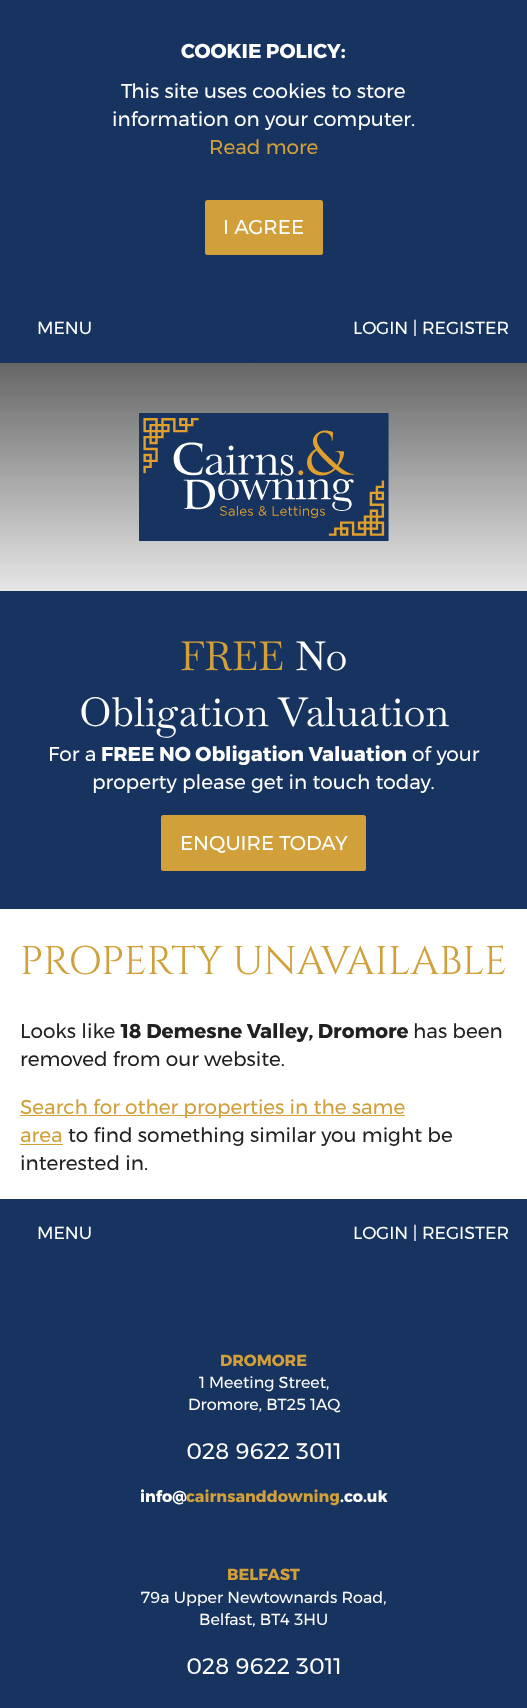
<svg xmlns="http://www.w3.org/2000/svg" width="527" height="1708">
	<defs>
		<linearGradient id="g1" gradientUnits="userSpaceOnUse" x1="264" y1="363" x2="264" y2="591"><stop offset="0" stop-color="#666666" /><stop offset="0.2" stop-color="#808080" /><stop offset="1" stop-color="#E6E6E6" /></linearGradient>
	</defs>
	<rect width="100%" height="100%" fill="#FFFFFF" />
	<rect x="0" y="0" width="527" height="363" fill="#173360" />
	<text x="181" y="58" font-family="Montserrat" font-size="20" font-weight="700" fill="#FFFFFF">COOKIE POLICY:</text>
	<g font-family="Montserrat" font-size="20" fill="#FFFFFF">
		<text x="121" y="98">This site uses cookies to store</text>
		<text x="112" y="126">information on your computer.</text>
	</g>
	<text x="209" y="154" font-family="Montserrat" font-size="20" fill="#D1A03A">Read more</text>
	<rect x="205" y="200" width="118" height="55" rx="2.5" fill="#D1A03A" />
	<text x="223" y="234" font-family="Montserrat" font-size="20" fill="#FFFFFF">I AGREE</text>
	<g font-family="Montserrat" font-size="17.5" fill="#FFFFFF">
		<text x="37" y="334">MENU</text>
		<text x="353" y="334">LOGIN | REGISTER</text>
	</g>
	<rect x="0" y="363" width="527" height="228" fill="url(#g1)" />
	<image x="139" y="413" width="250" height="128" href="assets/img1.png" />
	<rect x="0" y="591" width="527" height="318" fill="#173360" />
	<text x="180" y="670" font-family="Baskervville" font-size="40" fill="#D1A03A">FREE</text>
	<g font-family="Baskervville" font-size="40" fill="#FFFFFF">
		<text x="295" y="670">No</text>
		<text x="79" y="726">Obligation Valuation</text>
	</g>
	<text x="48" y="761" font-family="Montserrat" font-size="20" fill="#FFFFFF">For a</text>
	<text x="101" y="761" font-family="Montserrat" font-size="20" font-weight="700" fill="#FFFFFF">FREE NO Obligation Valuation</text>
	<g font-family="Montserrat" font-size="20" fill="#FFFFFF">
		<text x="412" y="761">of your</text>
		<text x="92" y="789">property please get in touch today.</text>
	</g>
	<rect x="161" y="815" width="205" height="56" rx="2.5" fill="#D1A03A" />
	<text x="180" y="850" font-family="Montserrat" font-size="20" fill="#FFFFFF">ENQUIRE TODAY</text>
	<text x="20" y="974" font-family="Cinzel" font-size="40" fill="#D1A03A">PROPERTY UNAVAILABLE</text>
	<text x="20" y="1038" font-family="Montserrat" font-size="20" fill="#212121">Looks like</text>
	<text x="121" y="1038" font-family="Montserrat" font-size="20" font-weight="700" fill="#212121">18 Demesne Valley, Dromore</text>
	<g font-family="Montserrat" font-size="20" fill="#212121">
		<text x="413" y="1038">has been</text>
		<text x="20" y="1066">removed from our website.</text>
	</g>
	<rect x="20" y="1115" width="385" height="1" fill="#D1A03A" />
	<g font-family="Montserrat" font-size="20" fill="#D1A03A">
		<text x="20" y="1114">Search for other properties in the same</text>
		<text x="20" y="1142">area</text>
	</g>
	<rect x="20" y="1144" width="43" height="1" fill="#D1A03A" />
	<g font-family="Montserrat" font-size="20" fill="#212121">
		<text x="68" y="1142">to find something similar you might be</text>
		<text x="20" y="1170">interested in.</text>
	</g>
	<rect x="0" y="1199" width="527" height="509" fill="#173360" />
	<g font-family="Montserrat" font-size="17.5" fill="#FFFFFF">
		<text x="37" y="1239">MENU</text>
		<text x="353" y="1239">LOGIN | REGISTER</text>
	</g>
	<text x="220" y="1366" font-family="Montserrat" font-size="16" font-weight="700" fill="#D1A03A">DROMORE</text>
	<g font-family="Montserrat" font-size="16" fill="#FFFFFF">
		<text x="199" y="1388">1 Meeting Street,</text>
		<text x="188" y="1410">Dromore, BT25 1AQ</text>
	</g>
	<text x="186" y="1459" font-family="Montserrat" font-size="22.5" fill="#FFFFFF">028 9622 3011</text>
	<text x="140" y="1502" font-family="Montserrat" font-size="16" font-weight="700" fill="#FFFFFF">info@</text>
	<text x="186" y="1502" font-family="Montserrat" font-size="16" font-weight="700" fill="#D1A03A">cairnsanddowning</text>
	<text x="340" y="1502" font-family="Montserrat" font-size="16" font-weight="700" fill="#FFFFFF">.co.uk</text>
	<text x="227" y="1580" font-family="Montserrat" font-size="16" font-weight="700" fill="#D1A03A">BELFAST</text>
	<g font-family="Montserrat" font-size="16" fill="#FFFFFF">
		<text x="141" y="1603">79a Upper Newtownards Road,</text>
		<text x="199" y="1625">Belfast, BT4 3HU</text>
	</g>
	<text x="186" y="1674" font-family="Montserrat" font-size="22.5" fill="#FFFFFF">028 9622 3011</text>
</svg>
